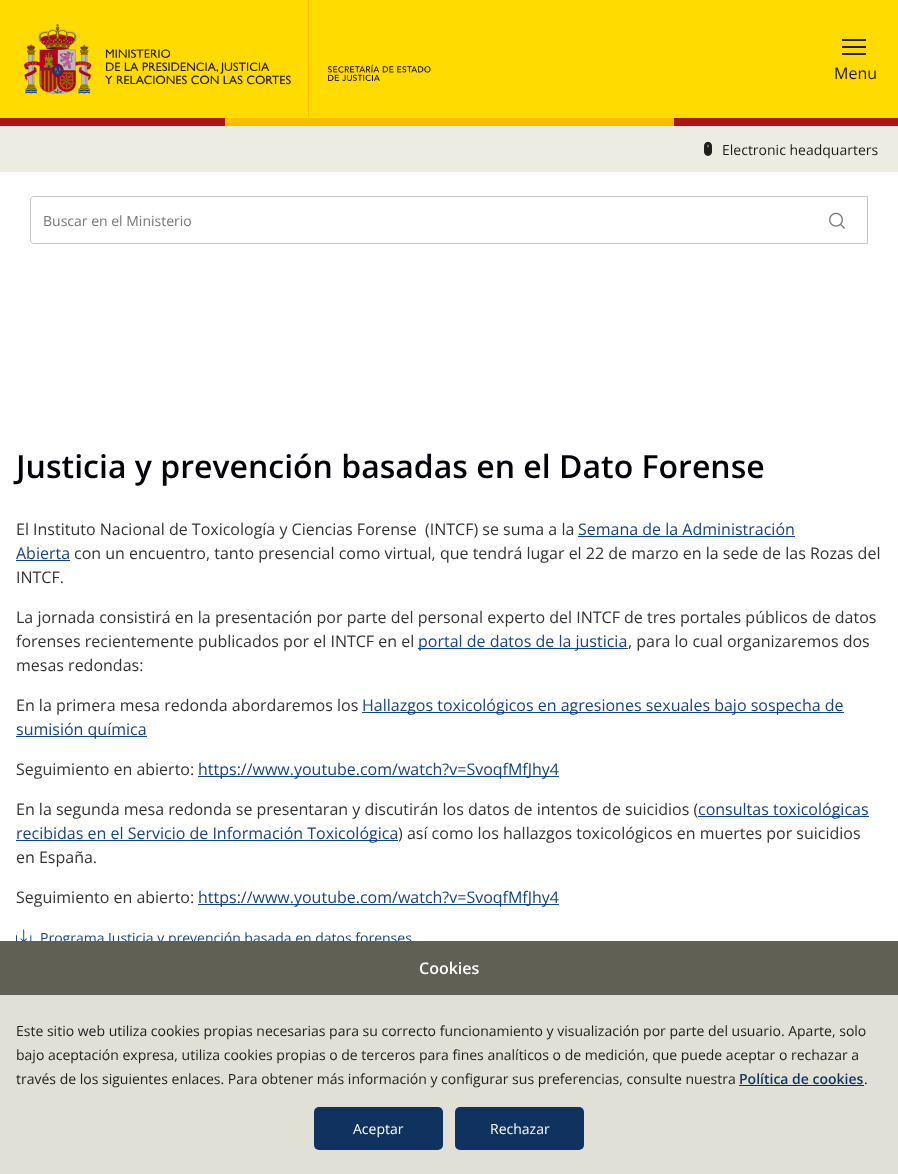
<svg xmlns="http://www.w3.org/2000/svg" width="898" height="1174">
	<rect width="100%" height="100%" fill="#FFFFFF" />
	<rect x="0" y="0" width="898" height="118" fill="#FFDB00" />
	<image x="24" y="24" width="267" height="70" href="assets/img1.png" />
	<rect x="308" y="0" width="1" height="118" fill="#FABD00" />
	<image x="328" y="64" width="103" height="18" href="assets/img2.png" />
	<rect x="842" y="39" width="24" height="2" fill="#1D1D1B" />
	<rect x="842" y="46" width="24" height="2" fill="#1D1D1B" />
	<rect x="842" y="53" width="24" height="2" fill="#1D1D1B" />
	<text x="834" y="79" font-family="Open Sans" font-size="16" fill="#1D1D1B">Menu</text>
	<rect x="225" y="118" width="449" height="8" fill="#FABD00" />
	<rect x="0" y="118" width="225" height="8" fill="#AD1519" />
	<rect x="674" y="118" width="224" height="8" fill="#AD1519" />
	<rect x="0" y="126" width="898" height="46" fill="#ECECE2" />
	<image x="704" y="141" width="8" height="15" href="assets/img3.png" />
	<text x="722" y="155" font-family="Open Sans" font-size="14" fill="#1D1D1B">Electronic headquarters</text>
	<path d="M34 196.5H867.5V243.5H34C32 243.5 30.5 242 30.5 240V200C30.5 198 32 196.5 34 196.5Z" fill="none" stroke="#C4C4C4" />
	<text x="43" y="226" font-family="Open Sans" font-size="14" fill="#757575">Buscar en el Ministerio</text>
	<image x="829" y="212" width="16" height="17" href="assets/img4.png" />
	<text x="16" y="478" font-family="Open Sans" font-size="32" font-weight="600" fill="#010309">Justicia y prevención basadas en el Dato Forense</text>
	<text x="16" y="535" font-family="Open Sans" font-size="16" fill="#333333" xml:space="preserve">El Instituto Nacional de Toxicología y Ciencias Forense  (INTCF) se suma a la</text>
	<text x="578" y="535" font-family="Open Sans" font-size="16" fill="#154481">Semana de la Administración</text>
	<rect x="578" y="536" width="217" height="1" fill="#154481" />
	<text x="16" y="559" font-family="Open Sans" font-size="16" fill="#154481">Abierta</text>
	<rect x="16" y="560" width="54" height="1" fill="#154481" />
	<g font-family="Open Sans" font-size="16" fill="#333333">
		<text x="74" y="559">con un encuentro, tanto presencial como virtual, que tendrá lugar el 22 de marzo en la sede de las Rozas del</text>
		<text x="16" y="583">INTCF.</text>
		<text x="16" y="623">La jornada consistirá en la presentación por parte del personal experto del INTCF de tres portales públicos de datos</text>
		<text x="16" y="647">forenses recientemente publicados por el INTCF en el</text>
	</g>
	<rect x="418" y="648" width="210" height="1" fill="#154481" />
	<text x="418" y="647" font-family="Open Sans" font-size="16" fill="#154481">portal de datos de la justicia</text>
	<g font-family="Open Sans" font-size="16" fill="#333333">
		<text x="628" y="647">, para lo cual organizaremos dos</text>
		<text x="16" y="671">mesas redondas:</text>
		<text x="16" y="711">En la primera mesa redonda abordaremos los</text>
	</g>
	<rect x="362" y="712" width="482" height="1" fill="#154481" />
	<text x="362" y="711" font-family="Open Sans" font-size="16" fill="#154481">Hallazgos toxicológicos en agresiones sexuales bajo sospecha de</text>
	<rect x="16" y="736" width="131" height="1" fill="#154481" />
	<text x="16" y="735" font-family="Open Sans" font-size="16" fill="#154481">sumisión química</text>
	<text x="16" y="775" font-family="Open Sans" font-size="16" fill="#333333">Seguimiento en abierto:</text>
	<rect x="198" y="776" width="361" height="1" fill="#154481" />
	<text x="198" y="775" font-family="Open Sans" font-size="16" fill="#154481">https://www.youtube.com/watch?v=SvoqfMfJhy4</text>
	<text x="16" y="815" font-family="Open Sans" font-size="16" fill="#333333">En la segunda mesa redonda se presentaran y discutirán los datos de intentos de suicidios (</text>
	<rect x="698" y="816" width="171" height="1" fill="#154481" />
	<text x="698" y="815" font-family="Open Sans" font-size="16" fill="#154481">consultas toxicológicas</text>
	<rect x="16" y="840" width="382" height="1" fill="#154481" />
	<text x="16" y="839" font-family="Open Sans" font-size="16" fill="#154481">recibidas en el Servicio de Información Toxicológica</text>
	<g font-family="Open Sans" font-size="16" fill="#333333">
		<text x="398" y="839">) así como los hallazgos toxicológicos en muertes por suicidios</text>
		<text x="16" y="863">en España.</text>
		<text x="16" y="903">Seguimiento en abierto:</text>
	</g>
	<rect x="198" y="904" width="361" height="1" fill="#154481" />
	<text x="198" y="903" font-family="Open Sans" font-size="16" fill="#154481">https://www.youtube.com/watch?v=SvoqfMfJhy4</text>
	<image x="16" y="929" width="16" height="12" href="assets/img5.png" />
	<text x="40" y="943" font-family="Open Sans" font-size="14" fill="#154481">Programa Justicia y prevención basada en datos forenses</text>
	<rect x="0" y="995" width="898" height="179" fill="#E0E0D7" />
	<rect x="0" y="941" width="898" height="54" fill="#606055" />
	<text x="419" y="974" font-family="Open Sans" font-size="16" font-weight="600" fill="#FFFFFF">Cookies</text>
	<g font-family="Open Sans" font-size="14" fill="#1D1D1B">
		<text x="16" y="1036">Este sitio web utiliza cookies propias necesarias para su correcto funcionamiento y visualización por parte del usuario. Aparte, solo</text>
		<text x="16" y="1060">bajo aceptación expresa, utiliza cookies propias o de terceros para fines analíticos o de medición, que puede aceptar o rechazar a</text>
		<text x="16" y="1084">través de los siguientes enlaces. Para obtener más información y configurar sus preferencias, consulte nuestra</text>
	</g>
	<text x="739" y="1084" font-family="Open Sans" font-size="14" font-weight="600" fill="#10325F">Política de cookies</text>
	<rect x="739" y="1085" width="125" height="1" fill="#10325F" />
	<text x="864" y="1084" font-family="Open Sans" font-size="14" fill="#1D1D1B">.</text>
	<rect x="314" y="1107" width="129" height="43" rx="5" fill="#10325F" />
	<text x="353" y="1134" font-family="Open Sans" font-size="14" fill="#FFFFFF">Aceptar</text>
	<rect x="455" y="1107" width="129" height="43" rx="5" fill="#10325F" />
	<text x="490" y="1134" font-family="Open Sans" font-size="14" fill="#FFFFFF">Rechazar</text>
</svg>
